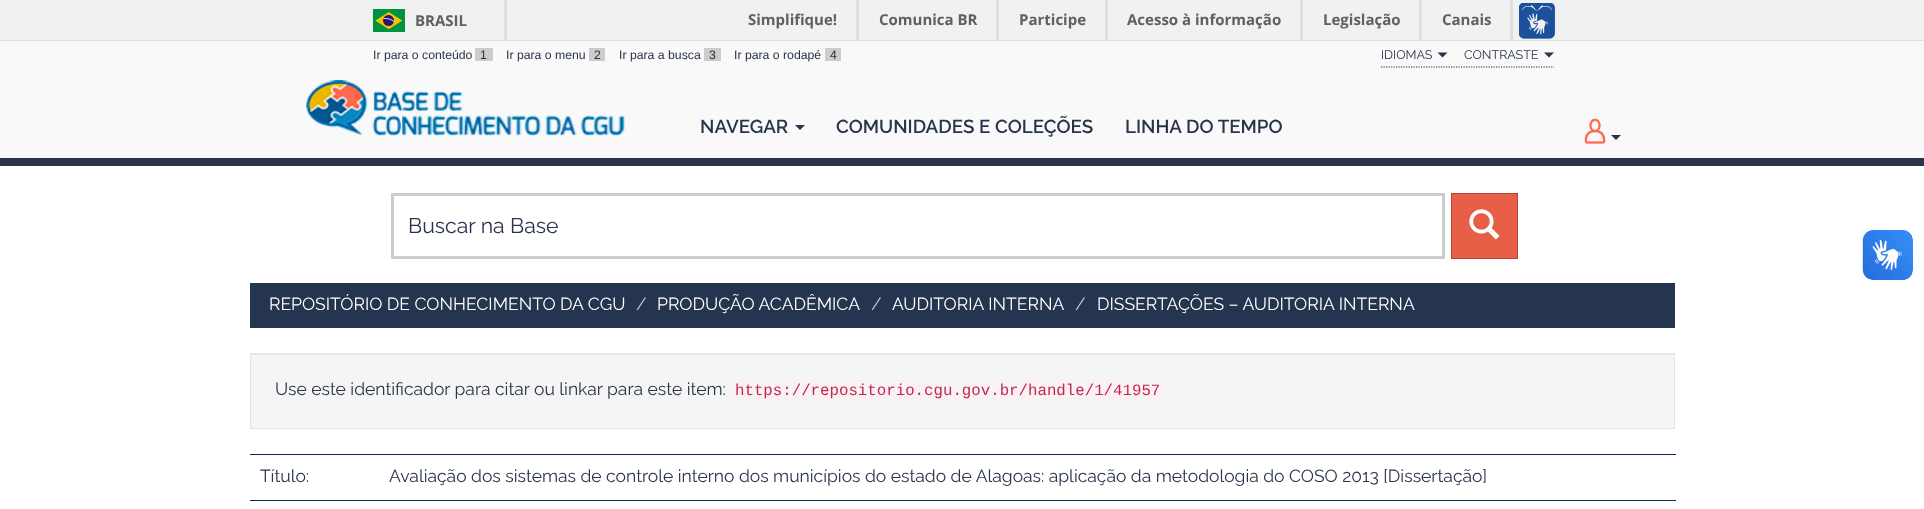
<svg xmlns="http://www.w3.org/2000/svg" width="1924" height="509">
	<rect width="100%" height="100%" fill="#FFFFFF" />
	<rect x="0" y="0" width="1924" height="40" fill="#F1F1F1" />
	<rect x="0" y="40" width="1924" height="1" fill="#DFDFDF" />
	<rect x="504" y="0" width="3" height="40" fill="#DFDFDF" />
	<image x="373" y="9" width="32" height="23" href="assets/img1.png" />
	<text x="415" y="26" font-family="Open Sans" font-size="15" font-weight="700" fill="#606060">BRASIL</text>
	<rect x="856" y="0" width="3" height="40" fill="#DFDFDF" />
	<text x="748" y="25" font-family="Open Sans" font-size="15" font-weight="700" fill="#606060">Simplifique!</text>
	<rect x="996" y="0" width="3" height="40" fill="#DFDFDF" />
	<text x="879" y="25" font-family="Open Sans" font-size="15" font-weight="700" fill="#606060">Comunica BR</text>
	<rect x="1105" y="0" width="3" height="40" fill="#DFDFDF" />
	<text x="1019" y="25" font-family="Open Sans" font-size="15" font-weight="700" fill="#606060">Participe</text>
	<rect x="1300" y="0" width="3" height="40" fill="#DFDFDF" />
	<text x="1127" y="25" font-family="Open Sans" font-size="15" font-weight="700" fill="#606060">Acesso à informação</text>
	<rect x="1419" y="0" width="3" height="40" fill="#DFDFDF" />
	<text x="1323" y="25" font-family="Open Sans" font-size="15" font-weight="700" fill="#606060">Legislação</text>
	<rect x="1510" y="0" width="3" height="40" fill="#DFDFDF" />
	<text x="1442" y="25" font-family="Open Sans" font-size="15" font-weight="700" fill="#606060">Canais</text>
	<image x="1519" y="3" width="36" height="36" href="assets/img2.png" />
	<rect x="0" y="41" width="1924" height="117" fill="#F9F9F9" />
	<rect x="0" y="158" width="1924" height="8" fill="#283449" />
	<text x="373" y="59" font-family="Liberation Sans" font-size="12.25" fill="#283449">Ir para o conteúdo</text>
	<rect x="475" y="48" width="18" height="13" fill="#CCCCCC" />
	<g font-family="Liberation Sans" font-size="12.25" fill="#283449">
		<text x="480" y="59">1</text>
		<text x="506" y="59">Ir para o menu</text>
	</g>
	<rect x="589" y="48" width="16" height="13" fill="#CCCCCC" />
	<g font-family="Liberation Sans" font-size="12.25" fill="#283449">
		<text x="594" y="59">2</text>
		<text x="619" y="59">Ir para a busca</text>
	</g>
	<rect x="704" y="48" width="17" height="13" fill="#CCCCCC" />
	<g font-family="Liberation Sans" font-size="12.25" fill="#283449">
		<text x="709" y="59">3</text>
		<text x="734" y="59">Ir para o rodapé</text>
	</g>
	<rect x="825" y="48" width="16" height="13" fill="#CCCCCC" />
	<text x="830" y="59" font-family="Liberation Sans" font-size="12.25" fill="#283449">4</text>
	<path d="M1381 67H1554" fill="none" stroke="#283449" stroke-width="1.2" stroke-dasharray="1.25 1.25" />
	<text x="1381" y="59" font-family="Raleway" font-size="12.5" fill="#283449">IDIOMAS</text>
	<path d="M1437.5 52.5H1447.5L1442.5 57.5Z" fill="#283449" />
	<text x="1464" y="59" font-family="Raleway" font-size="12.5" fill="#283449">CONTRASTE</text>
	<path d="M1544 52.5H1554L1549 57.5Z" fill="#283449" />
	<image x="306" y="80" width="319" height="56" href="assets/img3.png" />
	<text x="700" y="133" font-family="Raleway" font-size="18.75" font-weight="600" fill="#283449">NAVEGAR</text>
	<path d="M795 125H805L800 130Z" fill="#283449" />
	<g font-family="Raleway" font-size="18.75" font-weight="600" fill="#283449">
		<text x="836" y="133">COMUNIDADES E COLEÇÕES</text>
		<text x="1125" y="133">LINHA DO TEMPO</text>
	</g>
	<image x="1584" y="118" width="22" height="26" href="assets/img4.png" />
	<path d="M1611 135H1621L1616 140Z" fill="#283449" />
	<rect x="392.5" y="194.5" width="1051" height="63" fill="none" stroke="#CCCCCC" stroke-width="3" />
	<text x="408" y="233" font-family="Raleway" font-size="21.25" fill="#283449">Buscar na Base</text>
	<rect x="1451.5" y="193.5" width="66" height="65" fill="#E65F46" stroke="#B14634" />
	<image x="1469" y="209" width="31" height="31" href="assets/img5.png" />
	<rect x="250" y="283" width="1425" height="45" fill="#25354F" />
	<text x="269" y="310" font-family="Raleway" font-size="17.5" fill="#FFFFFF">REPOSITÓRIO DE CONHECIMENTO DA CGU</text>
	<text x="636" y="310" font-family="Raleway" font-size="17.5" fill="#CCCCCC">/</text>
	<text x="657" y="310" font-family="Raleway" font-size="17.5" fill="#FFFFFF">PRODUÇÃO ACADÊMICA</text>
	<text x="871" y="310" font-family="Raleway" font-size="17.5" fill="#CCCCCC">/</text>
	<text x="892" y="310" font-family="Raleway" font-size="17.5" fill="#FFFFFF">AUDITORIA INTERNA</text>
	<text x="1075" y="310" font-family="Raleway" font-size="17.5" fill="#CCCCCC">/</text>
	<text x="1097" y="310" font-family="Raleway" font-size="17.5" fill="#FFFFFF">DISSERTAÇÕES – AUDITORIA INTERNA</text>
	<rect x="251" y="355" width="1423" height="73" fill="#F5F5F5" />
	<rect x="251" y="354" width="1423" height="1" fill="#E9E9E9" />
	<rect x="250.5" y="353.5" width="1424" height="75" fill="none" stroke="#E3E3E3" />
	<text x="275" y="395" font-family="Raleway" font-size="17.5" fill="#283449">Use este identificador para citar ou linkar para este item:</text>
	<rect x="730" y="380" width="435" height="23" fill="#F9F2F4" />
	<text x="735" y="395" font-family="Liberation Mono" font-size="15.75" fill="#C7254E">https://repositorio.cgu.gov.br/handle/1/41957</text>
	<text x="260" y="482" font-family="Raleway" font-size="17.5" fill="#283449">Título:</text>
	<rect x="250" y="454" width="1426" height="1" fill="#102953" />
	<text x="389" y="482" font-family="Raleway" font-size="17.5" fill="#283449">Avaliação dos sistemas de controle interno dos municípios do estado de Alagoas: aplicação da metodologia do COSO 2013 [Dissertação]</text>
	<rect x="250" y="500" width="1426" height="1" fill="#102953" />
	<image x="1862" y="230" width="51" height="50" href="assets/img6.png" />
	<image x="1863" y="230" width="50" height="50" href="assets/img7.png" />
</svg>
